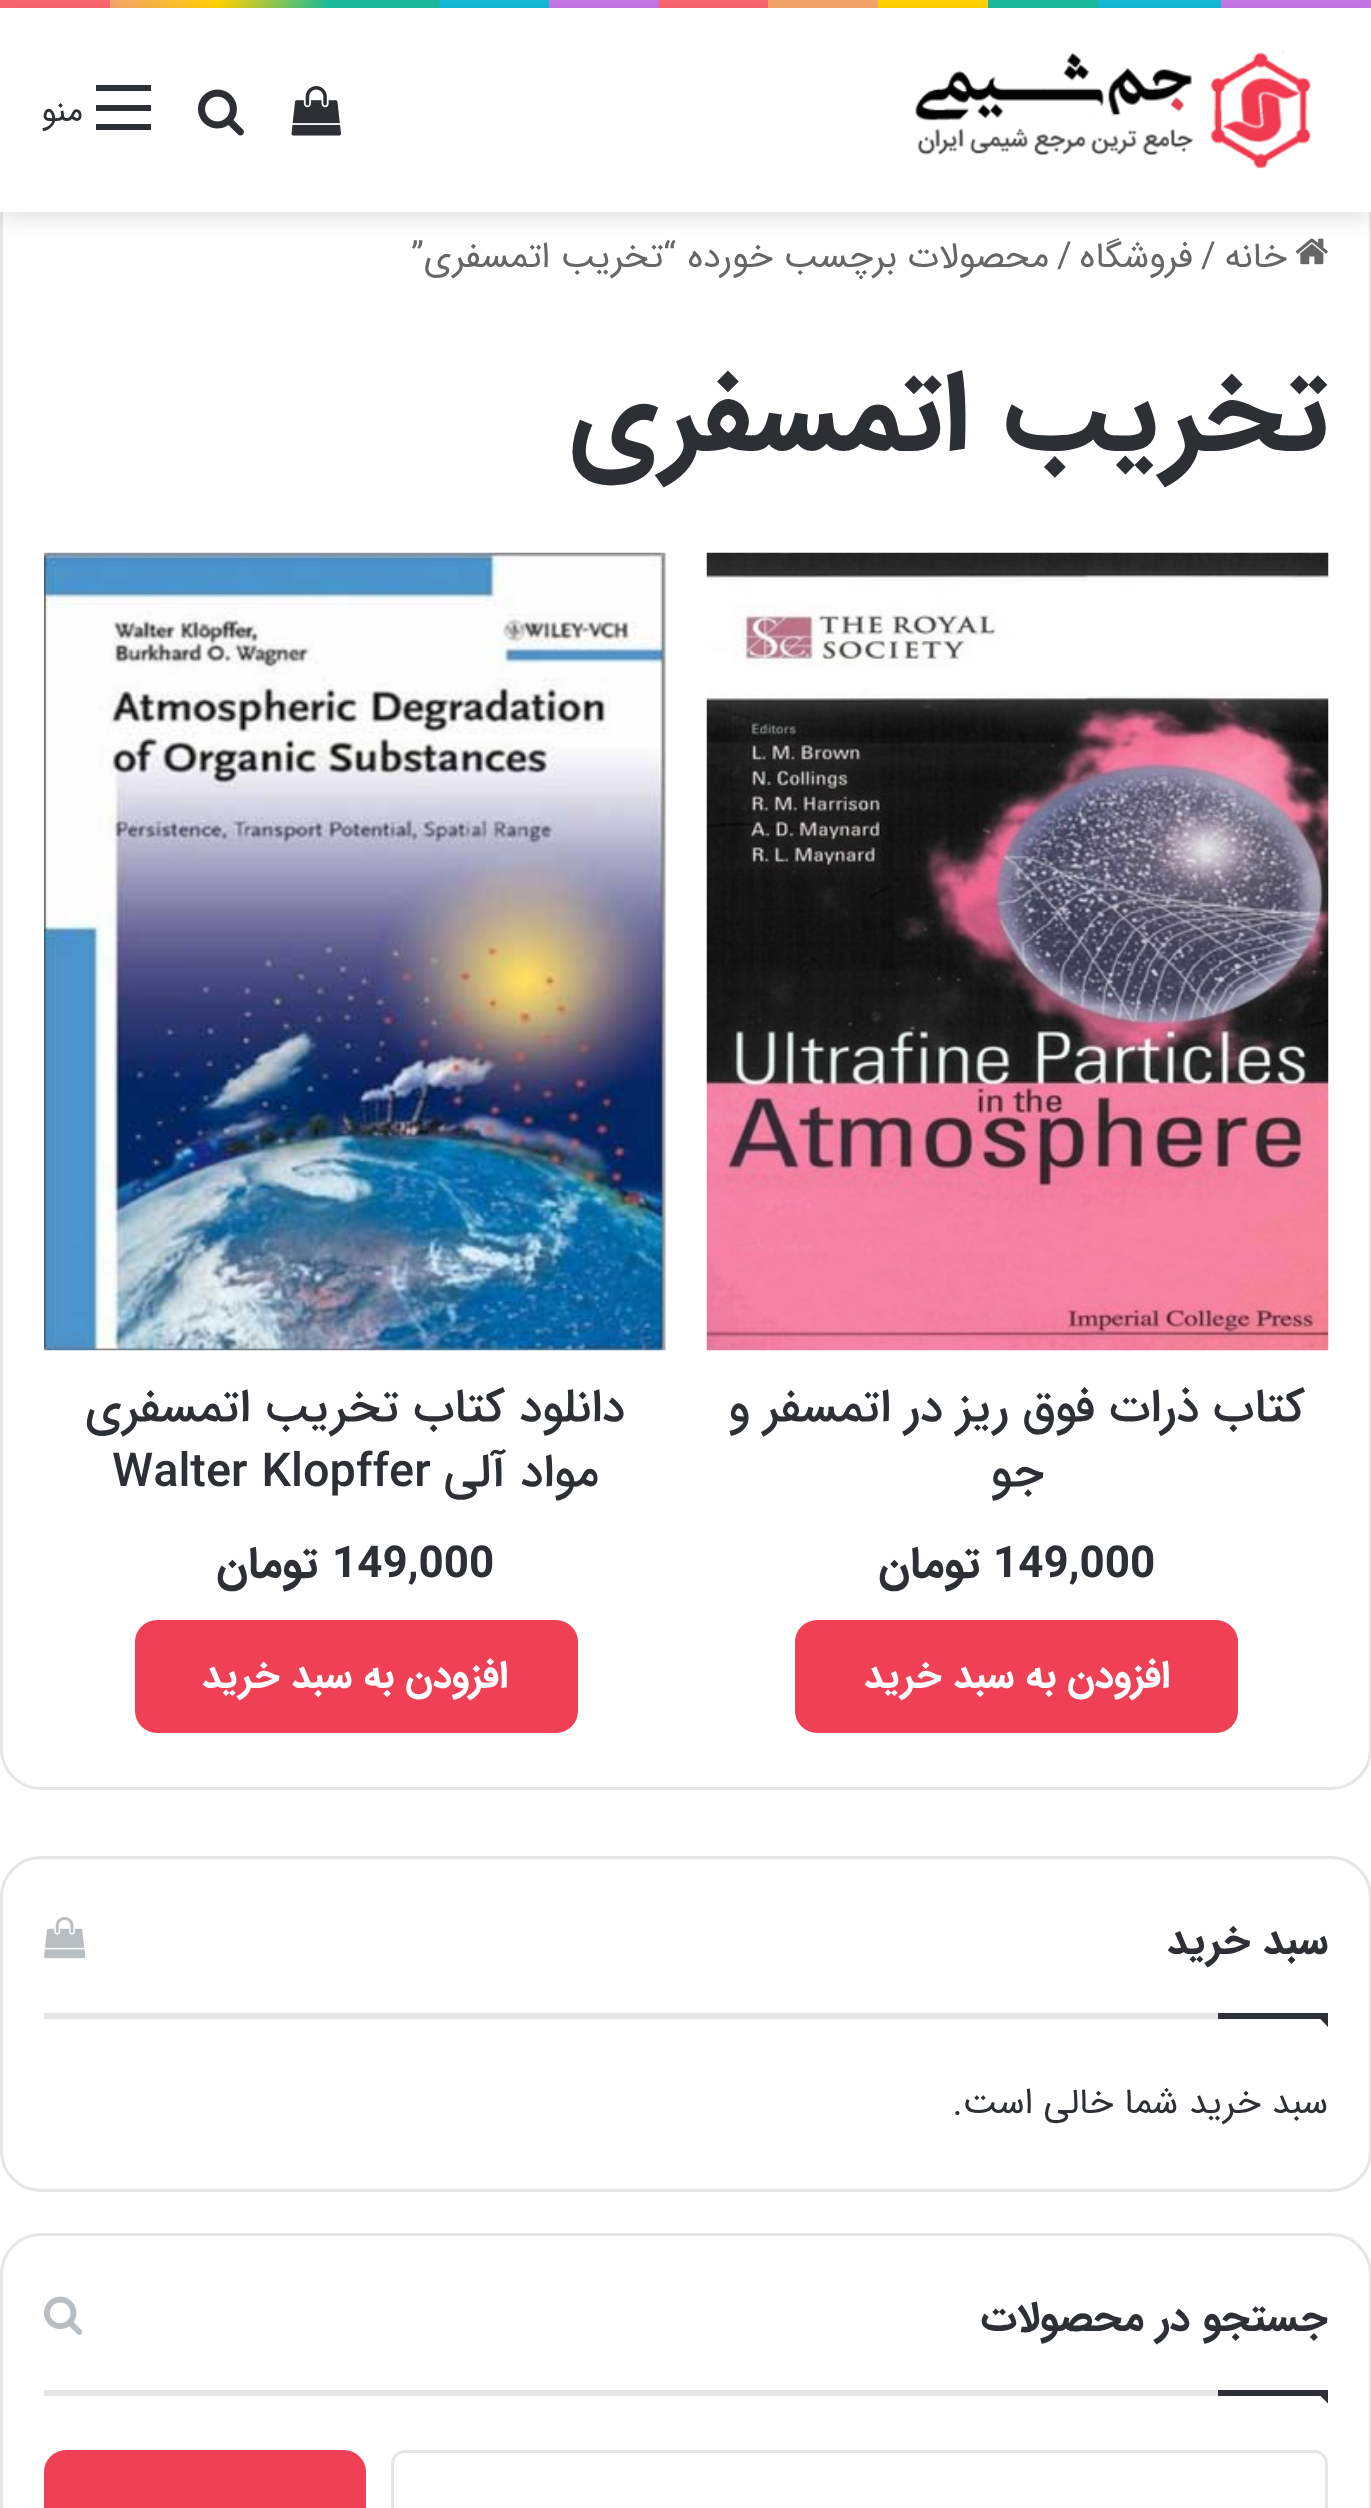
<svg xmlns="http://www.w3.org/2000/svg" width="1371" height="2508">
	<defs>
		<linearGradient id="g1" gradientUnits="userSpaceOnUse" x1="0" y1="4.1" x2="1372" y2="4.1"><stop offset="0" stop-color="#F76570" /><stop offset="0.08" stop-color="#F76570" /><stop offset="0.08" stop-color="#F3A46B" /><stop offset="0.16" stop-color="#FFD205" /><stop offset="0.24" stop-color="#1BBC9B" /><stop offset="0.32" stop-color="#1BBC9B" /><stop offset="0.32" stop-color="#14B9D5" /><stop offset="0.4" stop-color="#14B9D5" /><stop offset="0.4" stop-color="#C377E4" /><stop offset="0.48" stop-color="#C377E4" /><stop offset="0.48" stop-color="#F76570" /><stop offset="0.56" stop-color="#F76570" /><stop offset="0.56" stop-color="#F3A46B" /><stop offset="0.64" stop-color="#F3A46B" /><stop offset="0.64" stop-color="#FFD205" /><stop offset="0.72" stop-color="#FFD205" /><stop offset="0.72" stop-color="#1BBC9B" /><stop offset="0.8" stop-color="#1BBC9B" /><stop offset="0.8" stop-color="#14B9D5" /><stop offset="0.89" stop-color="#14B9D5" /><stop offset="0.89" stop-color="#C377E4" /><stop offset="1" stop-color="#C377E4" /></linearGradient>
	</defs>
	<rect width="100%" height="100%" fill="#FFFFFF" />
	<rect x="0" y="0" width="1371" height="8" fill="url(#g1)" />
	<rect x="1.5" y="172.5" width="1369" height="1616" rx="39.5" fill="none" stroke="#E6E6E6" stroke-width="3" />
	<image x="1295" y="238" width="33" height="27" href="assets/img4.png" />
	<rect x="0" y="17" width="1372" height="203" fill="#000000" fill-opacity="0.1" filter="blur(9.5px)" />
	<rect x="0" y="8" width="1371" height="204" fill="#FFFFFF" />
	<image x="914" y="50" width="397" height="119" href="assets/img1.png" />
	<image x="291" y="86" width="50" height="50" href="assets/img2.png" />
	<image x="198" y="89" width="46" height="47" href="assets/img3.png" />
	<rect x="96" y="105" width="55" height="6" fill="#2C2F34" />
	<rect x="96" y="85" width="55" height="6" fill="#2C2F34" />
	<rect x="96" y="124" width="55" height="6" fill="#2C2F34" />
	<text x="83" y="121" font-family="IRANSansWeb" font-size="33" direction="rtl" fill="#2C2F34">منو</text>
	<text x="1287" y="267" font-family="IRANSansWeb" font-size="35.75" direction="rtl" fill="#666666">خانه</text>
	<text x="1201" y="267" font-family="IRANSansWeb" font-size="35.75" fill="#666666">/</text>
	<text x="1193" y="267" font-family="IRANSansWeb" font-size="35.75" direction="rtl" fill="#666666">فروشگاه</text>
	<text x="1057" y="267" font-family="IRANSansWeb" font-size="35.75" fill="#666666">/</text>
	<g font-family="IRANSansWeb" font-size="35.75" direction="rtl" fill="#666666">
		<text x="1049" y="267">محصولات برچسب خورده</text>
		<text x="676" y="267">“تخریب اتمسفری”</text>
	</g>
	<text x="1328" y="448" font-family="IRANSansWeb" font-size="112.75" font-weight="700" direction="rtl" fill="#2C2F34">تخریب اتمسفری</text>
	<image x="706" y="552" width="623" height="799" href="assets/img5.png" />
	<g font-family="IRANSansWeb" font-size="46.75" font-weight="500" direction="rtl" fill="#2C2F34">
		<text x="1305" y="1421">کتاب ذرات فوق ریز در اتمسفر و</text>
		<text x="1044" y="1486">جو</text>
	</g>
	<text x="993" y="1577" font-family="IRANSansWeb" font-size="44" font-weight="700" fill="#2C2F34">149,000</text>
	<text x="980" y="1577" font-family="IRANSansWeb" font-size="44" font-weight="700" direction="rtl" fill="#2C2F34">تومان</text>
	<rect x="795" y="1620" width="443" height="113" rx="22" fill="#EF4056" />
	<text x="1170" y="1687" font-family="IRANSansWeb" font-size="38.5" font-weight="700" direction="rtl" fill="#FFFFFF">افزودن به سبد خرید</text>
	<rect x="665" y="553" width="1" height="797" fill="#F1F1F1" />
	<image x="44" y="552" width="622" height="799" href="assets/img6.png" />
	<g font-family="IRANSansWeb" font-size="46.75" font-weight="500" direction="rtl" fill="#2C2F34">
		<text x="625" y="1421">دانلود کتاب تخریب اتمسفری</text>
		<text x="599" y="1486">مواد آلی</text>
	</g>
	<text x="112" y="1486" font-family="IRANSansWeb" font-size="46.75" font-weight="500" fill="#2C2F34">Walter Klopffer</text>
	<text x="332" y="1577" font-family="IRANSansWeb" font-size="44" font-weight="700" fill="#2C2F34">149,000</text>
	<text x="318" y="1577" font-family="IRANSansWeb" font-size="44" font-weight="700" direction="rtl" fill="#2C2F34">تومان</text>
	<rect x="135" y="1620" width="443" height="113" rx="22" fill="#EF4056" />
	<text x="508" y="1687" font-family="IRANSansWeb" font-size="38.5" font-weight="700" direction="rtl" fill="#FFFFFF">افزودن به سبد خرید</text>
	<rect x="1.5" y="1857.5" width="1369" height="333" rx="39.5" fill="none" stroke="#E6E6E6" stroke-width="3" />
	<rect x="44" y="2013" width="1174" height="6" fill="#E6E6E6" />
	<text x="1328" y="1953" font-family="IRANSansWeb" font-size="41.25" font-weight="700" direction="rtl" fill="#2C2F34">سبد خرید</text>
	<image x="44" y="1917" width="42" height="42" href="assets/img7.png" />
	<path d="M1314.5 2013H1328V2027Z" fill="#2C2F34" />
	<rect x="1218" y="2013" width="110" height="6" fill="#2C2F34" />
	<text x="1328" y="2113" font-family="IRANSansWeb" font-size="35.75" direction="rtl" fill="#2C2F34">سبد خرید شما خالی است.</text>
	<rect x="1.5" y="2234.5" width="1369" height="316" rx="39.5" fill="none" stroke="#E6E6E6" stroke-width="3" />
	<rect x="44" y="2390" width="1174" height="6" fill="#E6E6E6" />
	<text x="1328" y="2330" font-family="IRANSansWeb" font-size="41.25" font-weight="700" direction="rtl" fill="#2C2F34">جستجو در محصولات</text>
	<image x="44" y="2296" width="39" height="39" href="assets/img8.png" />
	<path d="M1314.5 2390H1328V2403.5Z" fill="#2C2F34" />
	<rect x="1218" y="2390" width="110" height="6" fill="#2C2F34" />
	<rect x="392.5" y="2451.5" width="934" height="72" rx="12.5" fill="none" stroke="#E6E6E6" stroke-width="3" />
	<rect x="44" y="2450" width="322" height="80" rx="22" fill="#EF4056" />
</svg>
